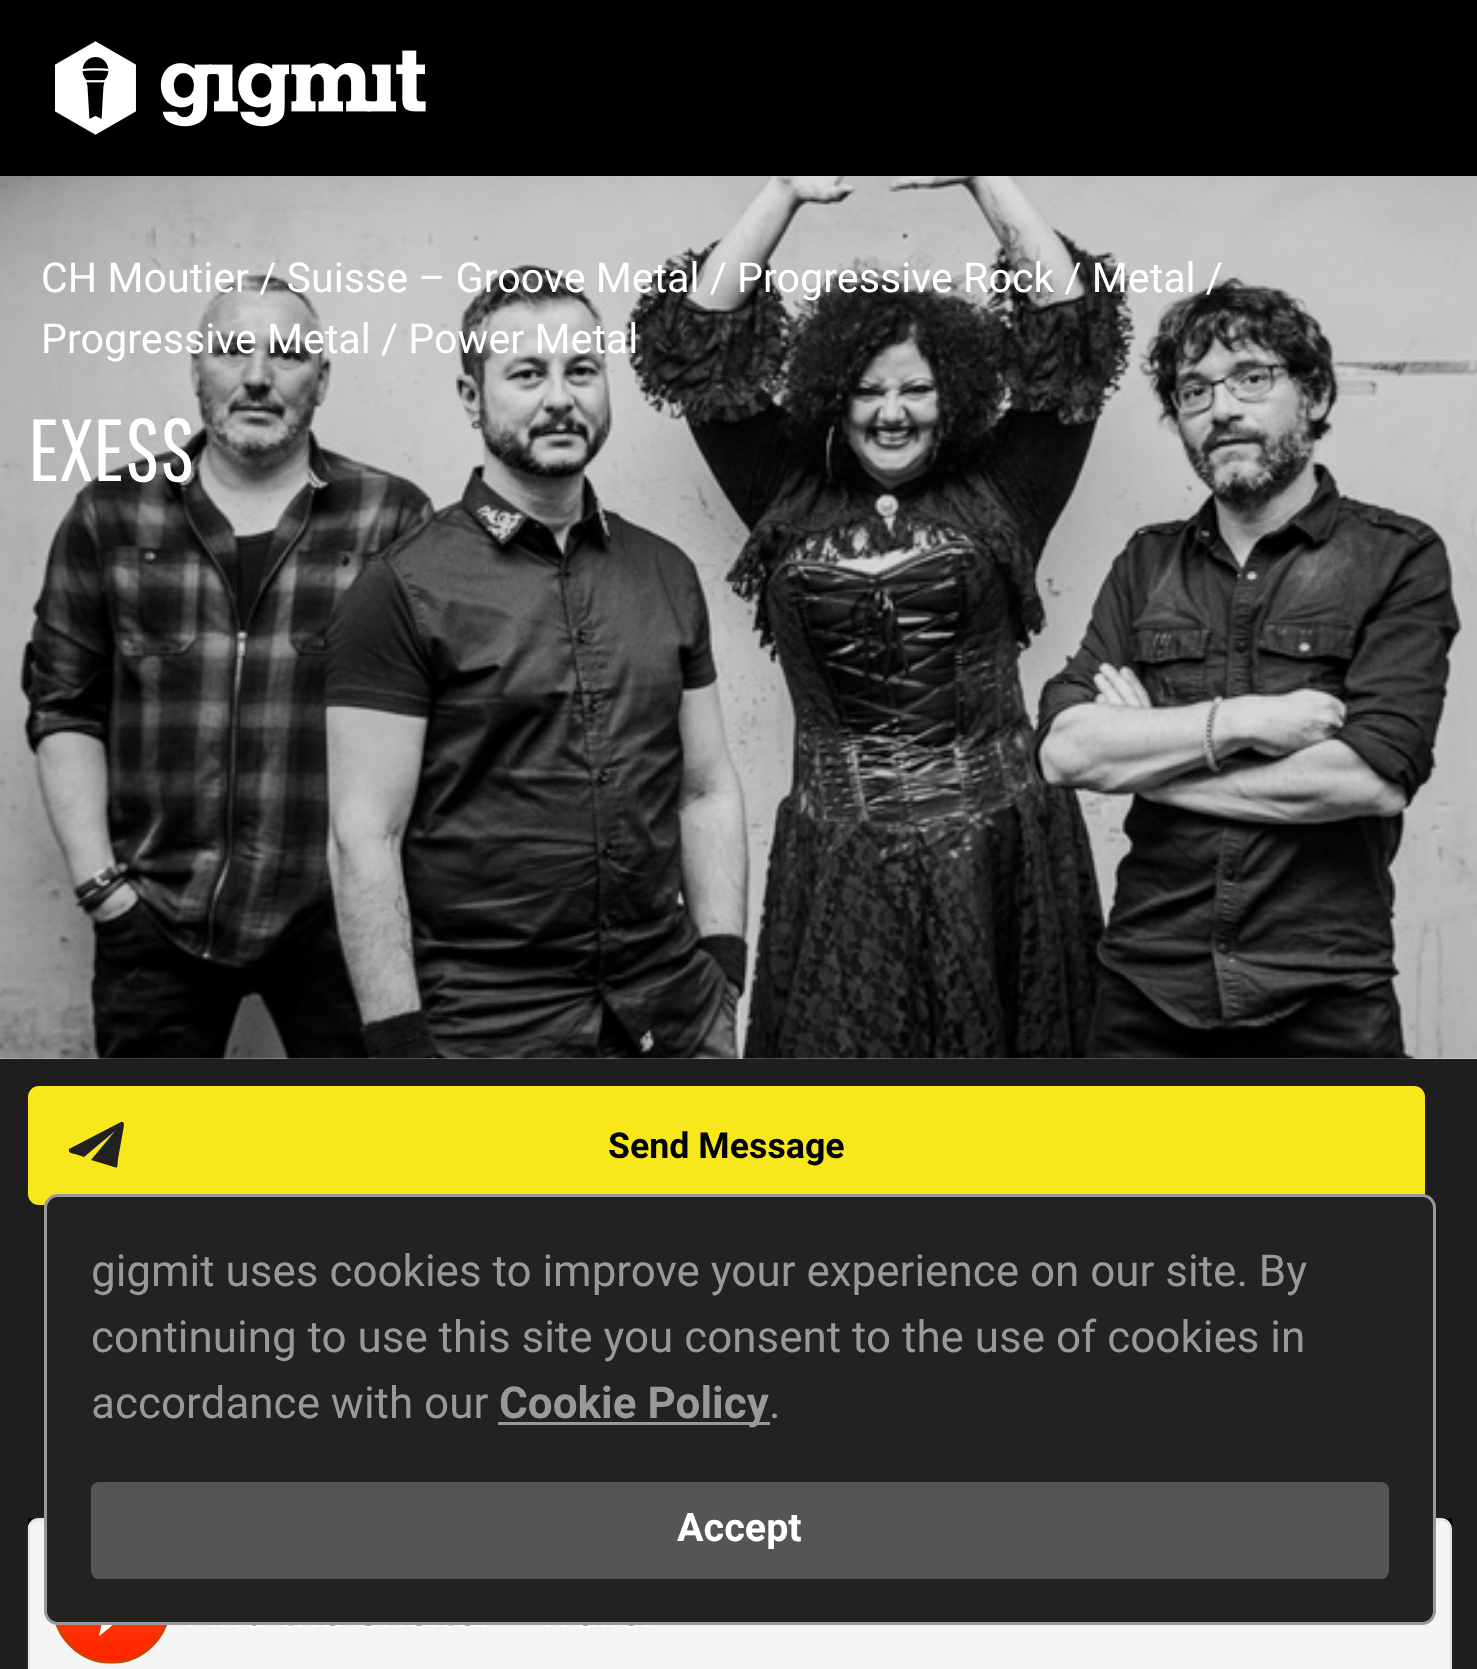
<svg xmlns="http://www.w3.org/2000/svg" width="1477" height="1669">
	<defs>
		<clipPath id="clip1"><rect x="69" y="1122" width="55" height="47" /></clipPath>
	</defs>
	<rect width="100%" height="100%" fill="#FFFFFF" />
	<rect x="0" y="0" width="1477" height="176" fill="#000000" />
	<image x="55" y="41" width="371" height="94" href="assets/img1.png" />
	<image x="0" y="176" width="1477" height="883" href="assets/img2.png" />
	<g font-family="Roboto" font-size="41.25" fill="#FFFFFF">
		<text x="41" y="292">CH Moutier / Suisse – Groove Metal / Progressive Rock / Metal /</text>
		<text x="41" y="353">Progressive Metal / Power Metal</text>
	</g>
	<text x="28" y="481" font-family="Pathway Gothic One" font-size="88" fill="#FFFFFF">EXESS</text>
	<rect x="0" y="1059" width="1477" height="610" fill="#1E1E1E" />
	<rect x="28" y="1086" width="1397" height="119" rx="11" fill="#F8E71C" />
	<g clip-path="url(#clip1)">
		<path d="M123 1122H121L69 1149C66 1152 74 1154 75 1154L84 1157L115 1131L91 1160L111 1166C119 1169 117 1168 118 1159L123 1131C123 1130 125 1124 123 1122Z" fill="#212121" />
	</g>
	<text x="608" y="1158" font-family="Roboto" font-size="35.75" font-weight="700" fill="#000000">Send Message</text>
	<rect x="28" y="1518" width="1424" height="11" fill="#000000" />
	<image x="27" y="1518" width="1425" height="151" href="assets/img3.png" />
	<rect x="45.5" y="1195.5" width="1389" height="428" rx="12.5" fill="#222222" stroke="#999999" stroke-width="3" />
	<g font-family="Roboto" font-size="44" fill="#999999">
		<text x="91" y="1286">gigmit uses cookies to improve your experience on our site. By</text>
		<text x="91" y="1352">continuing to use this site you consent to the use of cookies in</text>
		<text x="91" y="1418">accordance with our</text>
	</g>
	<rect x="498" y="1422" width="272" height="3" fill="#999999" />
	<text x="499" y="1418" font-family="Roboto" font-size="44" font-weight="700" fill="#999999">Cookie Policy</text>
	<text x="769" y="1418" font-family="Roboto" font-size="44" fill="#999999">.</text>
	<rect x="91" y="1482" width="1298" height="97" rx="8" fill="#555555" />
	<text x="677" y="1541" font-family="Roboto" font-size="39.5" font-weight="700" fill="#FFFFFF">Accept</text>
</svg>
